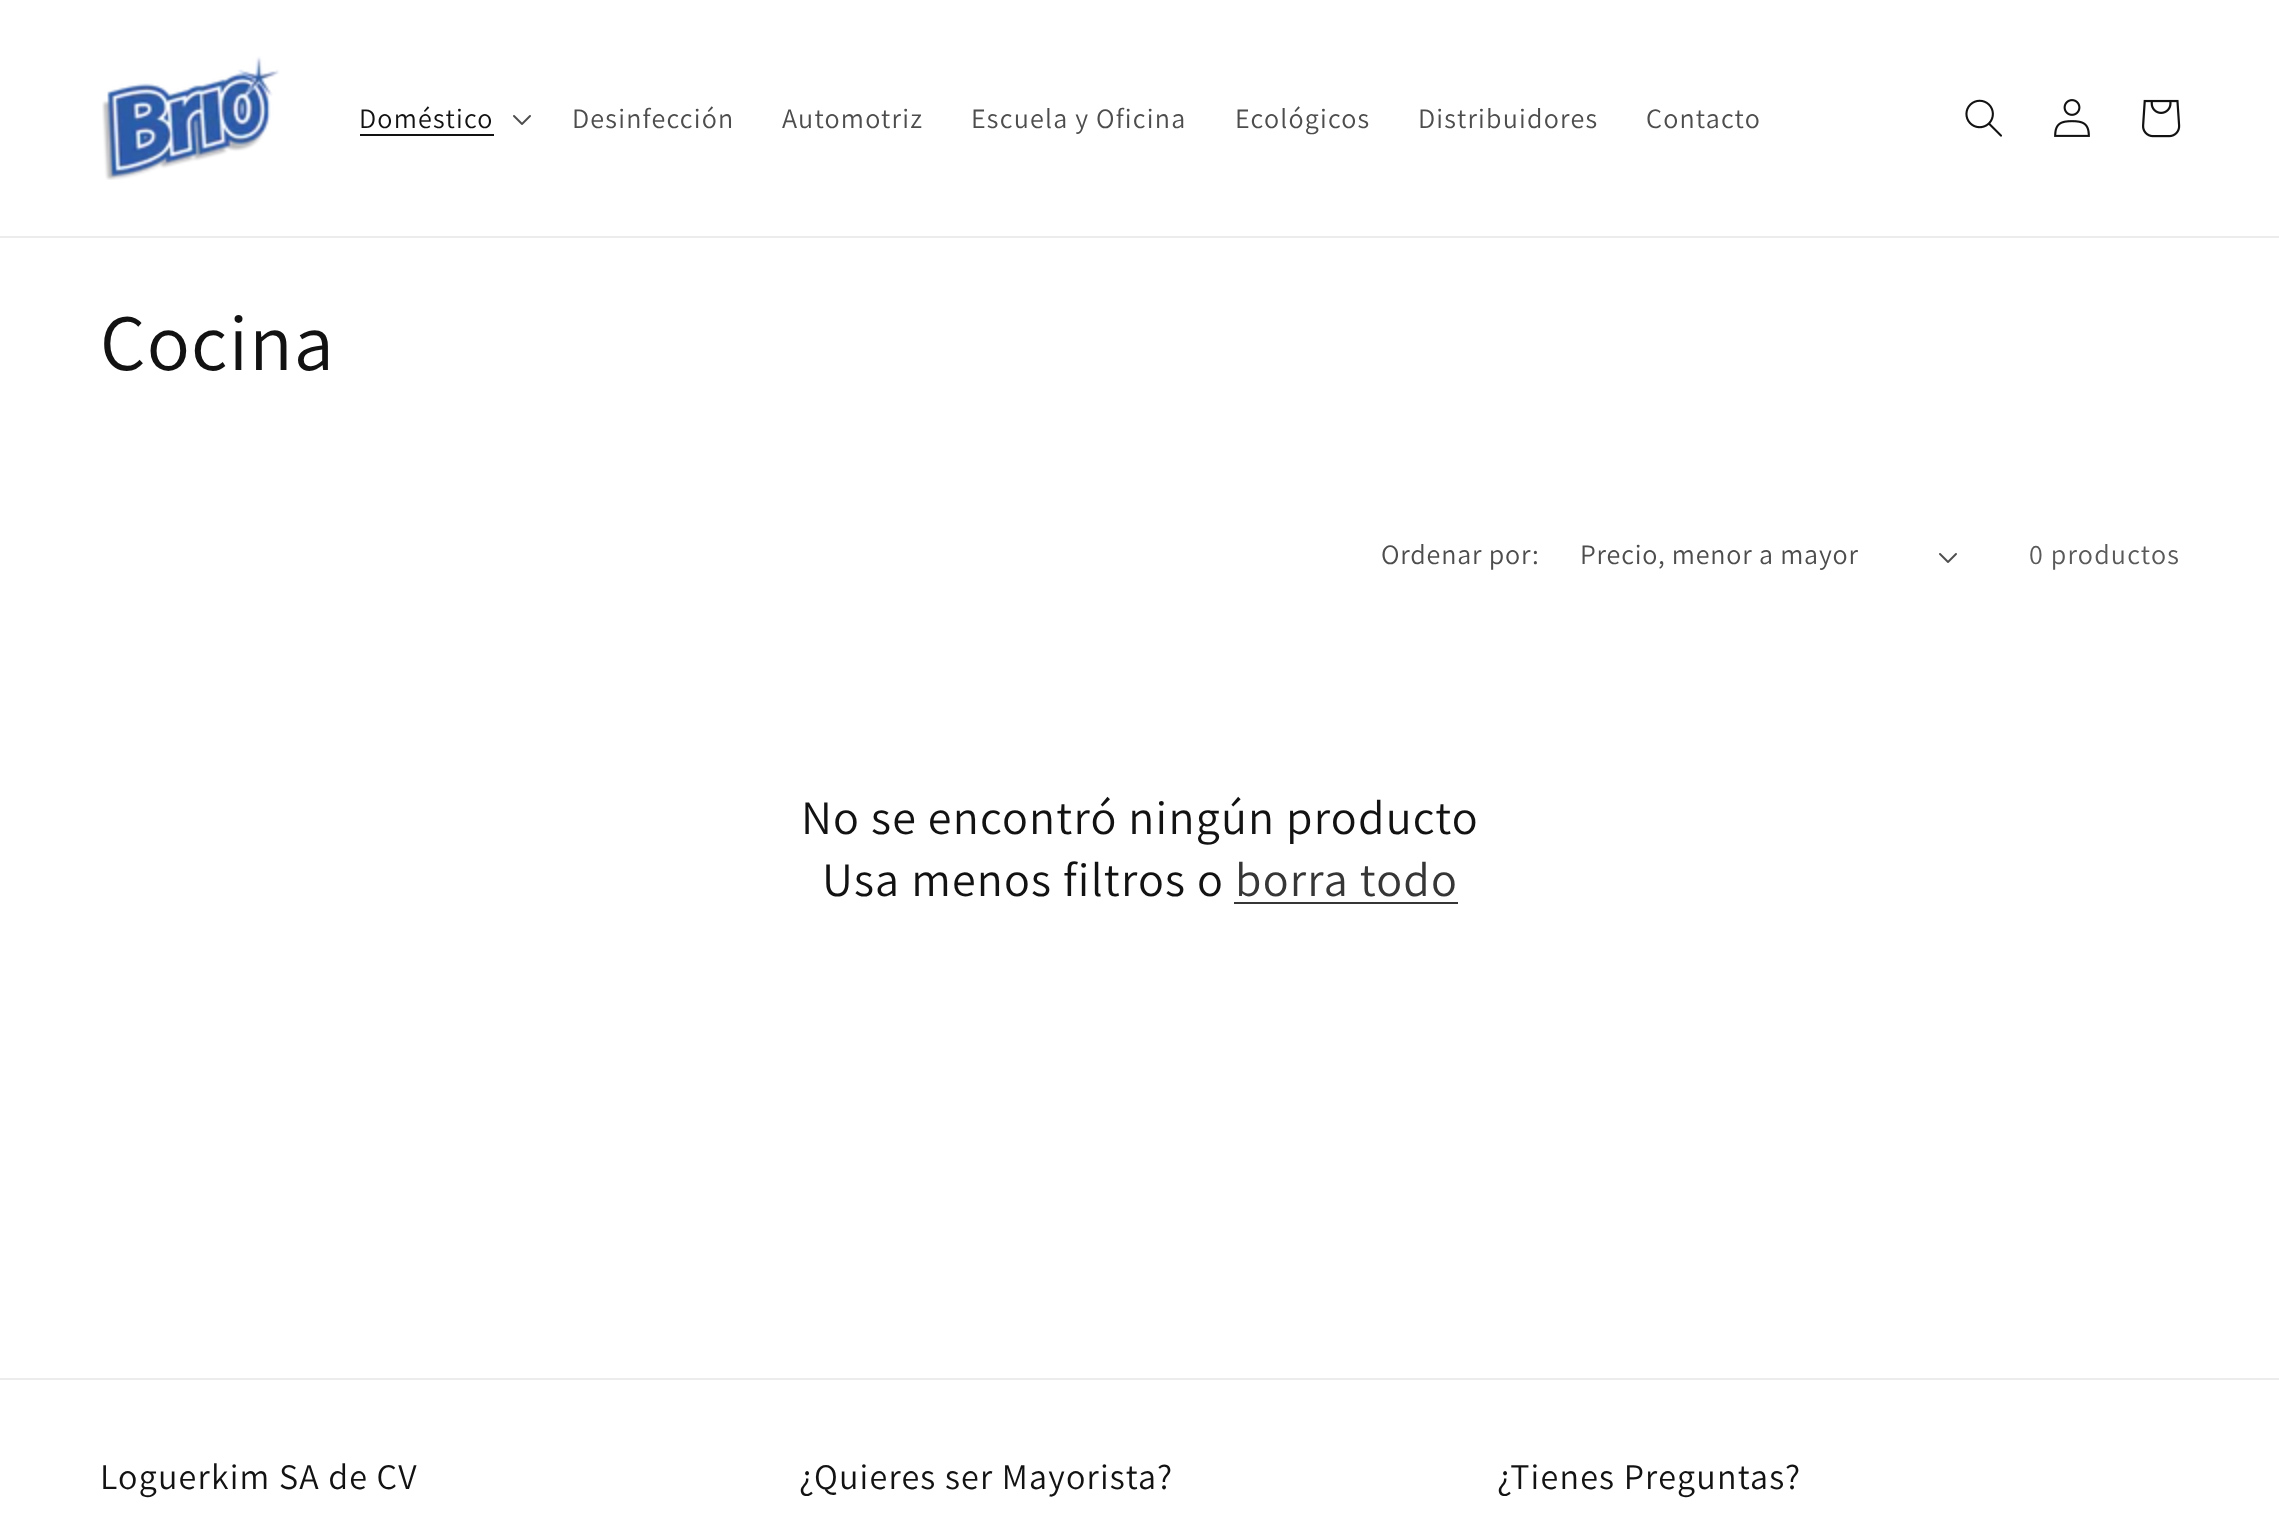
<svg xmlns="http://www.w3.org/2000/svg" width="2279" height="1513">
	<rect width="100%" height="100%" fill="#FFFFFF" />
	<rect x="0" y="236" width="2279" height="2" fill="#ECECEC" />
	<image x="102" y="56" width="178" height="124" href="assets/img1.png" />
	<text x="359" y="128" font-family="Assistant" font-size="28" letter-spacing="1.2" fill="#121212">Doméstico</text>
	<rect x="360" y="134" width="134" height="2" fill="#121212" />
	<image x="513" y="115" width="18" height="10" href="assets/img2.png" />
	<g font-family="Assistant" font-size="28" letter-spacing="1.2" fill="#4D4D4D">
		<text x="572" y="128">Desinfección</text>
		<text x="782" y="128">Automotriz</text>
		<text x="971" y="128">Escuela y Oficina</text>
		<text x="1235" y="128">Ecológicos</text>
		<text x="1418" y="128">Distribuidores</text>
		<text x="1646" y="128">Contacto</text>
	</g>
	<image x="1965" y="99" width="37" height="38" href="assets/img3.png" />
	<image x="2054" y="99" width="36" height="38" href="assets/img4.png" />
	<image x="2142" y="99" width="39" height="39" href="assets/img5.png" />
	<text x="100" y="370" font-family="Assistant" font-size="80" letter-spacing="1.2" fill="#121212">Cocina</text>
	<g font-family="Assistant" font-size="28" letter-spacing="0.8" fill="#4D4D4D">
		<text x="1381" y="564">Ordenar por:</text>
		<text x="1580" y="564">Precio, menor a mayor</text>
	</g>
	<image x="1939" y="553" width="18" height="10" href="assets/img2.png" />
	<text x="2029" y="564" font-family="Assistant" font-size="28" letter-spacing="1.2" fill="#595959">0 productos</text>
	<g font-family="Assistant" font-size="48" letter-spacing="1.2" fill="#121212">
		<text x="801" y="834">No se encontró ningún producto</text>
		<text x="822" y="896">Usa menos filtros o</text>
	</g>
	<text x="1235" y="896" font-family="Assistant" font-size="48" letter-spacing="1.2" fill="#363636">borra todo</text>
	<rect x="1234" y="902" width="224" height="2" fill="#363636" />
	<rect x="0" y="1378" width="2279" height="2" fill="#ECECEC" />
	<g font-family="Assistant" font-size="36" letter-spacing="1.2" fill="#121212">
		<text x="100" y="1489">Loguerkim SA de CV</text>
		<text x="799" y="1489">¿Quieres ser Mayorista?</text>
		<text x="1497" y="1489">¿Tienes Preguntas?</text>
	</g>
</svg>
